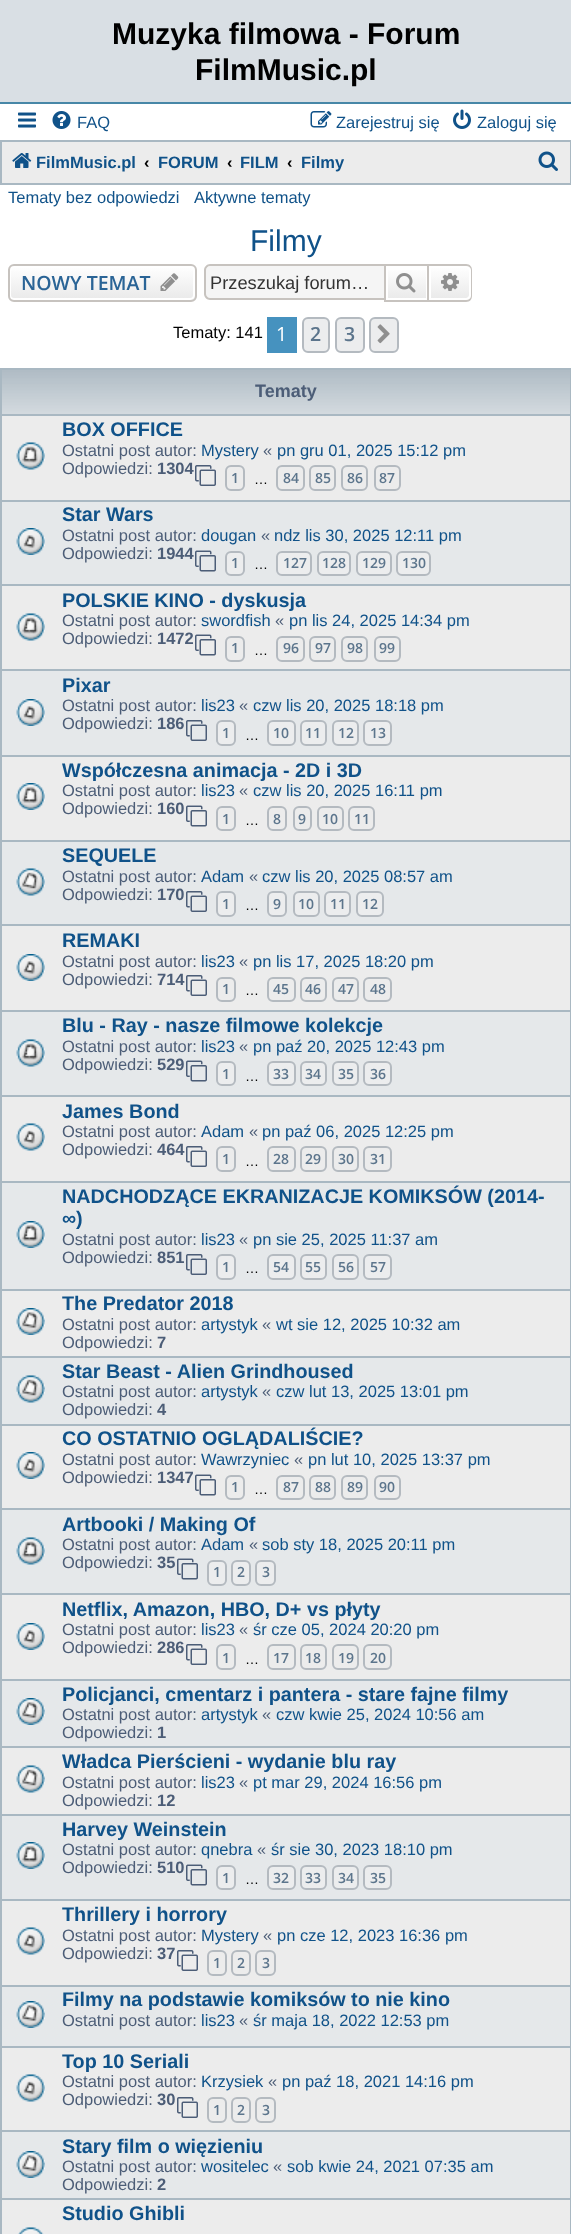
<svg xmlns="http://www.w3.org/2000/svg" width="571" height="2234">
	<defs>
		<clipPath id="clip1"><rect x="8" y="264" width="189" height="38" rx="6" /></clipPath>
		<linearGradient id="g1" gradientUnits="userSpaceOnUse" x1="102" y1="266" x2="102" y2="300"><stop offset="0" stop-color="#FFFFFF" /><stop offset="1" stop-color="#E9E9E9" /></linearGradient>
		<linearGradient id="g2" gradientUnits="userSpaceOnUse" x1="407" y1="266" x2="407" y2="300"><stop offset="0" stop-color="#FFFFFF" /><stop offset="1" stop-color="#E9E9E9" /></linearGradient>
		<linearGradient id="g3" gradientUnits="userSpaceOnUse" x1="450" y1="266" x2="450" y2="300"><stop offset="0" stop-color="#FFFFFF" /><stop offset="1" stop-color="#E9E9E9" /></linearGradient>
	</defs>
	<rect width="100%" height="100%" fill="#FFFFFF" />
	<rect x="0" y="0" width="571" height="102" fill="#D9DFE4" />
	<rect x="0" y="102" width="571" height="2" fill="#4787A7" />
	<g font-family="Liberation Sans" font-size="30" font-weight="700" fill="#000000">
		<text x="112" y="44">Muzyka filmowa - Forum</text>
		<text x="195" y="80">FilmMusic.pl</text>
	</g>
	<image x="18" y="112" width="18" height="16" href="assets/img1.png" />
	<image x="52" y="111" width="19" height="18" href="assets/img2.png" />
	<text x="77" y="128" font-family="Liberation Sans" font-size="16.5" fill="#105289">FAQ</text>
	<image x="310" y="111" width="22" height="17" href="assets/img3.png" />
	<text x="336" y="128" font-family="Liberation Sans" font-size="16.5" fill="#105289">Zarejestruj się</text>
	<image x="453" y="109" width="18" height="20" href="assets/img4.png" />
	<text x="477" y="128" font-family="Liberation Sans" font-size="16.5" fill="#105289">Zaloguj się</text>
	<rect x="1" y="141" width="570" height="43" fill="#ECECEC" stroke="#A9B8C2" stroke-width="2" />
	<image x="12" y="153" width="20" height="15" href="assets/img5.png" />
	<text x="36" y="168" font-family="Liberation Sans" font-size="16.5" font-weight="700" fill="#105289">FilmMusic.pl</text>
	<text x="144" y="168" font-family="Liberation Sans" font-size="16.5" font-weight="700" fill="#000000">‹</text>
	<text x="158" y="168" font-family="Liberation Sans" font-size="16.5" font-weight="700" fill="#105289">FORUM</text>
	<text x="227" y="168" font-family="Liberation Sans" font-size="16.5" font-weight="700" fill="#000000">‹</text>
	<text x="240" y="168" font-family="Liberation Sans" font-size="16.5" font-weight="700" fill="#105289">FILM</text>
	<text x="287" y="168" font-family="Liberation Sans" font-size="16.5" font-weight="700" fill="#000000">‹</text>
	<text x="301" y="168" font-family="Liberation Sans" font-size="16.5" font-weight="700" fill="#105289">Filmy</text>
	<image x="538" y="151" width="20" height="20" href="assets/img6.png" />
	<g font-family="Liberation Sans" font-size="16.5" fill="#105289">
		<text x="8" y="203">Tematy bez odpowiedzi</text>
		<text x="194" y="203">Aktywne tematy</text>
	</g>
	<text x="250" y="251" font-family="Liberation Sans" font-size="30" fill="#105289">Filmy</text>
	<g clip-path="url(#clip1)">
		<rect x="8" y="266" width="189" height="34" fill="url(#g1)" />
	</g>
	<rect x="10" y="267" width="184" height="32" rx="4" fill="none" stroke="#FFFFFF" stroke-width="2" />
	<rect x="9" y="265" width="187" height="36" rx="5" fill="none" stroke="#C7C3BF" stroke-width="2" />
	<text x="21" y="290" font-family="Open Sans" font-size="19.5" font-weight="600" fill="#2A6496">NOWY TEMAT</text>
	<image x="160" y="273" width="19" height="18" href="assets/img7.png" />
	<path d="M211 266H384V299H211C208 299 206 297 206 294V271C206 268 208 266 211 266Z" fill="#F5F5F5" />
	<path d="M210 264H384V300H210C207 300 204 297 204 294V270C204 267 207 264 210 264ZM210 266H384V298H210C208 298 206 296 206 294V270C206 268 208 266 210 266Z" fill="#C7C3BF" fill-rule="evenodd" />
	<text x="210" y="289" font-family="Liberation Sans" font-size="18.25" fill="#333333">Przeszukaj forum…</text>
	<rect x="388" y="270" width="38" height="28" fill="url(#g2)" />
	<rect x="385" y="265" width="43" height="36" fill="none" stroke="#C7C3BF" stroke-width="2" />
	<image x="396" y="273" width="20" height="20" href="assets/img8.png" />
	<path d="M430 267H466C468 267 470 269 470 271V295C470 297 468 299 466 299H430Z" fill="url(#g3)" stroke="#FFFFFF" stroke-width="2" />
	<path d="M429 264H466C470 264 472 267 472 270V296C472 299 470 302 466 302H429ZM429 266H466C469 266 471 268 471 270V296C471 298 469 300 466 300H429Z" fill="#C7C3BF" fill-rule="evenodd" />
	<image x="441" y="273" width="18" height="18" href="assets/img9.png" />
	<text x="173" y="338" font-family="Liberation Sans" font-size="16.5" fill="#000000">Tematy: 141</text>
	<rect x="267" y="317" width="30" height="36" fill="#4692BF" />
	<text x="276" y="341" font-family="Open Sans" font-size="19.5" fill="#FFFFFF">1</text>
	<rect x="303" y="318" width="26" height="34" rx="5" fill="#ECEDEE" stroke="#B4BAC0" stroke-width="2" />
	<text x="310" y="341" font-family="Open Sans" font-size="19.5" font-weight="600" fill="#5C758C">2</text>
	<rect x="336" y="318" width="28" height="34" rx="5" fill="#ECEDEE" stroke="#B4BAC0" stroke-width="2" />
	<text x="344" y="341" font-family="Open Sans" font-size="19.5" font-weight="600" fill="#5C758C">3</text>
	<rect x="370" y="318" width="28" height="34" rx="5" fill="#ECEDEE" stroke="#B4BAC0" stroke-width="2" />
	<image x="377" y="324" width="13" height="20" href="assets/img10.png" />
	<rect x="2" y="416" width="568" height="1818" fill="#ECECEC" />
	<image x="2" y="370" width="568" height="44" href="assets/img11.png" />
	<rect x="1" y="369" width="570" height="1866" fill="none" stroke="#A9B8C2" stroke-width="2" />
	<text x="255" y="397" font-family="Liberation Sans" font-size="18" font-weight="700" fill="#4C5D77">Tematy</text>
	<rect x="2" y="414" width="568" height="2" fill="#A9B8C2" />
	<image x="16" y="442" width="29" height="28" href="assets/img12.png" />
	<text x="62" y="436" font-family="Liberation Sans" font-size="19.8" font-weight="700" fill="#105289">BOX OFFICE</text>
	<text x="62" y="456" font-family="Liberation Sans" font-size="16.5" fill="#4C5D77">Ostatni post autor:</text>
	<text x="201" y="456" font-family="Liberation Sans" font-size="16.5" fill="#105289">Mystery</text>
	<text x="263" y="456" font-family="Liberation Sans" font-size="16.5" fill="#4C5D77">«</text>
	<text x="277" y="456" font-family="Liberation Sans" font-size="16.5" fill="#105289">pn gru 01, 2025 15:12 pm</text>
	<text x="62" y="474" font-family="Liberation Sans" font-size="16.5" fill="#4C5D77">Odpowiedzi:</text>
	<text x="157" y="474" font-family="Liberation Sans" font-size="16.5" font-weight="700" fill="#4C5D77">1304</text>
	<image x="195" y="465" width="21" height="21" href="assets/img13.png" />
	<rect x="226" y="466" width="18" height="24" rx="5" fill="none" stroke="#B4BAC0" stroke-width="2" />
	<text x="231" y="483" font-family="Open Sans" font-size="14" font-weight="600" fill="#5C758C">1</text>
	<text x="254" y="484" font-family="Liberation Sans" font-size="14" fill="#000000">…</text>
	<rect x="277" y="466" width="27" height="24" rx="5" fill="none" stroke="#B4BAC0" stroke-width="2" />
	<text x="283" y="483" font-family="Open Sans" font-size="14" font-weight="600" fill="#5C758C">84</text>
	<rect x="310" y="466" width="25" height="24" rx="5" fill="none" stroke="#B4BAC0" stroke-width="2" />
	<text x="315" y="483" font-family="Open Sans" font-size="14" font-weight="600" fill="#5C758C">85</text>
	<rect x="342" y="466" width="25" height="24" rx="5" fill="none" stroke="#B4BAC0" stroke-width="2" />
	<text x="347" y="483" font-family="Open Sans" font-size="14" font-weight="600" fill="#5C758C">86</text>
	<rect x="375" y="466" width="25" height="24" rx="5" fill="none" stroke="#B4BAC0" stroke-width="2" />
	<text x="379" y="483" font-family="Open Sans" font-size="14" font-weight="600" fill="#5C758C">87</text>
	<rect x="2" y="502" width="568" height="82" fill="#E5E8EA" />
	<rect x="2" y="500" width="568" height="2" fill="#A9B8C2" />
	<image x="16" y="528" width="29" height="27" href="assets/img14.png" />
	<text x="62" y="521" font-family="Liberation Sans" font-size="19.8" font-weight="700" fill="#105289">Star Wars</text>
	<text x="62" y="541" font-family="Liberation Sans" font-size="16.5" fill="#4C5D77">Ostatni post autor:</text>
	<text x="201" y="541" font-family="Liberation Sans" font-size="16.5" fill="#105289">dougan</text>
	<text x="261" y="541" font-family="Liberation Sans" font-size="16.5" fill="#4C5D77">«</text>
	<text x="274" y="541" font-family="Liberation Sans" font-size="16.5" fill="#105289">ndz lis 30, 2025 12:11 pm</text>
	<text x="62" y="559" font-family="Liberation Sans" font-size="16.5" fill="#4C5D77">Odpowiedzi:</text>
	<text x="157" y="559" font-family="Liberation Sans" font-size="16.5" font-weight="700" fill="#4C5D77">1944</text>
	<image x="195" y="550" width="21" height="22" href="assets/img15.png" />
	<rect x="226" y="552" width="18" height="23" rx="5" fill="#ECEDEE" stroke="#B4BAC0" stroke-width="2" />
	<text x="231" y="568" font-family="Open Sans" font-size="14" font-weight="600" fill="#5C758C">1</text>
	<text x="254" y="569" font-family="Liberation Sans" font-size="14" fill="#000000">…</text>
	<rect x="277" y="552" width="34" height="23" rx="5" fill="#ECEDEE" stroke="#B4BAC0" stroke-width="2" />
	<text x="283" y="568" font-family="Open Sans" font-size="14" font-weight="600" fill="#5C758C">127</text>
	<rect x="318" y="552" width="32" height="23" rx="5" fill="#ECEDEE" stroke="#B4BAC0" stroke-width="2" />
	<text x="322" y="568" font-family="Open Sans" font-size="14" font-weight="600" fill="#5C758C">128</text>
	<rect x="357" y="552" width="34" height="23" rx="5" fill="#ECEDEE" stroke="#B4BAC0" stroke-width="2" />
	<text x="362" y="568" font-family="Open Sans" font-size="14" font-weight="600" fill="#5C758C">129</text>
	<rect x="397" y="552" width="33" height="23" rx="5" fill="#ECEDEE" stroke="#B4BAC0" stroke-width="2" />
	<text x="402" y="568" font-family="Open Sans" font-size="14" font-weight="600" fill="#5C758C">130</text>
	<rect x="2" y="584" width="568" height="2" fill="#A9B8C2" />
	<image x="16" y="613" width="29" height="28" href="assets/img12.png" />
	<text x="62" y="607" font-family="Liberation Sans" font-size="19.8" font-weight="700" fill="#105289">POLSKIE KINO - dyskusja</text>
	<text x="62" y="626" font-family="Liberation Sans" font-size="16.5" fill="#4C5D77">Ostatni post autor:</text>
	<text x="201" y="626" font-family="Liberation Sans" font-size="16.5" fill="#105289">swordfish</text>
	<text x="275" y="626" font-family="Liberation Sans" font-size="16.5" fill="#4C5D77">«</text>
	<text x="289" y="626" font-family="Liberation Sans" font-size="16.5" fill="#105289">pn lis 24, 2025 14:34 pm</text>
	<text x="62" y="644" font-family="Liberation Sans" font-size="16.5" fill="#4C5D77">Odpowiedzi:</text>
	<text x="157" y="644" font-family="Liberation Sans" font-size="16.5" font-weight="700" fill="#4C5D77">1472</text>
	<image x="195" y="634" width="21" height="22" href="assets/img16.png" />
	<rect x="226" y="637" width="18" height="24" rx="5" fill="none" stroke="#B4BAC0" stroke-width="2" />
	<text x="231" y="653" font-family="Open Sans" font-size="14" font-weight="600" fill="#5C758C">1</text>
	<text x="254" y="655" font-family="Liberation Sans" font-size="14" fill="#000000">…</text>
	<rect x="277" y="637" width="27" height="24" rx="5" fill="none" stroke="#B4BAC0" stroke-width="2" />
	<text x="283" y="653" font-family="Open Sans" font-size="14" font-weight="600" fill="#5C758C">96</text>
	<rect x="310" y="637" width="25" height="24" rx="5" fill="none" stroke="#B4BAC0" stroke-width="2" />
	<text x="315" y="653" font-family="Open Sans" font-size="14" font-weight="600" fill="#5C758C">97</text>
	<rect x="342" y="637" width="25" height="24" rx="5" fill="none" stroke="#B4BAC0" stroke-width="2" />
	<text x="347" y="653" font-family="Open Sans" font-size="14" font-weight="600" fill="#5C758C">98</text>
	<rect x="375" y="637" width="25" height="24" rx="5" fill="none" stroke="#B4BAC0" stroke-width="2" />
	<text x="379" y="653" font-family="Open Sans" font-size="14" font-weight="600" fill="#5C758C">99</text>
	<rect x="2" y="671" width="568" height="84" fill="#E5E8EA" />
	<rect x="2" y="669" width="568" height="2" fill="#A9B8C2" />
	<image x="16" y="699" width="29" height="27" href="assets/img14.png" />
	<text x="62" y="692" font-family="Liberation Sans" font-size="19.8" font-weight="700" fill="#105289">Pixar</text>
	<text x="62" y="711" font-family="Liberation Sans" font-size="16.5" fill="#4C5D77">Ostatni post autor:</text>
	<text x="201" y="711" font-family="Liberation Sans" font-size="16.5" fill="#105289">lis23</text>
	<text x="239" y="711" font-family="Liberation Sans" font-size="16.5" fill="#4C5D77">«</text>
	<text x="253" y="711" font-family="Liberation Sans" font-size="16.5" fill="#105289">czw lis 20, 2025 18:18 pm</text>
	<text x="62" y="729" font-family="Liberation Sans" font-size="16.5" fill="#4C5D77">Odpowiedzi:</text>
	<text x="157" y="729" font-family="Liberation Sans" font-size="16.5" font-weight="700" fill="#4C5D77">186</text>
	<image x="186" y="720" width="21" height="21" href="assets/img17.png" />
	<rect x="217" y="721" width="18" height="24" rx="5" fill="#ECEDEE" stroke="#B4BAC0" stroke-width="2" />
	<text x="222" y="738" font-family="Open Sans" font-size="14" font-weight="600" fill="#5C758C">1</text>
	<text x="245" y="740" font-family="Liberation Sans" font-size="14" fill="#000000">…</text>
	<rect x="268" y="721" width="27" height="24" rx="5" fill="#ECEDEE" stroke="#B4BAC0" stroke-width="2" />
	<text x="273" y="738" font-family="Open Sans" font-size="14" font-weight="600" fill="#5C758C">10</text>
	<rect x="301" y="721" width="25" height="24" rx="5" fill="#ECEDEE" stroke="#B4BAC0" stroke-width="2" />
	<text x="305" y="738" font-family="Open Sans" font-size="14" font-weight="600" fill="#5C758C">11</text>
	<rect x="333" y="721" width="25" height="24" rx="5" fill="#ECEDEE" stroke="#B4BAC0" stroke-width="2" />
	<text x="338" y="738" font-family="Open Sans" font-size="14" font-weight="600" fill="#5C758C">12</text>
	<rect x="364" y="721" width="27" height="24" rx="5" fill="#ECEDEE" stroke="#B4BAC0" stroke-width="2" />
	<text x="370" y="738" font-family="Open Sans" font-size="14" font-weight="600" fill="#5C758C">13</text>
	<rect x="2" y="755" width="568" height="2" fill="#A9B8C2" />
	<image x="16" y="783" width="29" height="27" href="assets/img18.png" />
	<text x="62" y="777" font-family="Liberation Sans" font-size="19.8" font-weight="700" fill="#105289">Współczesna animacja - 2D i 3D</text>
	<text x="62" y="796" font-family="Liberation Sans" font-size="16.5" fill="#4C5D77">Ostatni post autor:</text>
	<text x="201" y="796" font-family="Liberation Sans" font-size="16.5" fill="#105289">lis23</text>
	<text x="239" y="796" font-family="Liberation Sans" font-size="16.5" fill="#4C5D77">«</text>
	<text x="253" y="796" font-family="Liberation Sans" font-size="16.5" fill="#105289">czw lis 20, 2025 16:11 pm</text>
	<text x="62" y="814" font-family="Liberation Sans" font-size="16.5" fill="#4C5D77">Odpowiedzi:</text>
	<text x="157" y="814" font-family="Liberation Sans" font-size="16.5" font-weight="700" fill="#4C5D77">160</text>
	<image x="186" y="805" width="21" height="22" href="assets/img16.png" />
	<rect x="217" y="807" width="18" height="23" rx="5" fill="none" stroke="#B4BAC0" stroke-width="2" />
	<text x="222" y="824" font-family="Open Sans" font-size="14" font-weight="600" fill="#5C758C">1</text>
	<text x="245" y="825" font-family="Liberation Sans" font-size="14" fill="#000000">…</text>
	<rect x="268" y="807" width="18" height="23" rx="5" fill="none" stroke="#B4BAC0" stroke-width="2" />
	<text x="273" y="824" font-family="Open Sans" font-size="14" font-weight="600" fill="#5C758C">8</text>
	<rect x="294" y="807" width="17" height="23" rx="5" fill="none" stroke="#B4BAC0" stroke-width="2" />
	<text x="298" y="824" font-family="Open Sans" font-size="14" font-weight="600" fill="#5C758C">9</text>
	<rect x="318" y="807" width="25" height="23" rx="5" fill="none" stroke="#B4BAC0" stroke-width="2" />
	<text x="322" y="824" font-family="Open Sans" font-size="14" font-weight="600" fill="#5C758C">10</text>
	<rect x="349" y="807" width="25" height="23" rx="5" fill="none" stroke="#B4BAC0" stroke-width="2" />
	<text x="354" y="824" font-family="Open Sans" font-size="14" font-weight="600" fill="#5C758C">11</text>
	<rect x="2" y="842" width="568" height="82" fill="#E5E8EA" />
	<rect x="2" y="840" width="568" height="2" fill="#A9B8C2" />
	<image x="16" y="868" width="29" height="28" href="assets/img19.png" />
	<text x="62" y="862" font-family="Liberation Sans" font-size="19.8" font-weight="700" fill="#105289">SEQUELE</text>
	<text x="62" y="882" font-family="Liberation Sans" font-size="16.5" fill="#4C5D77">Ostatni post autor:</text>
	<text x="201" y="882" font-family="Liberation Sans" font-size="16.5" fill="#105289">Adam</text>
	<text x="249" y="882" font-family="Liberation Sans" font-size="16.5" fill="#4C5D77">«</text>
	<text x="262" y="882" font-family="Liberation Sans" font-size="16.5" fill="#105289">czw lis 20, 2025 08:57 am</text>
	<text x="62" y="900" font-family="Liberation Sans" font-size="16.5" fill="#4C5D77">Odpowiedzi:</text>
	<text x="157" y="900" font-family="Liberation Sans" font-size="16.5" font-weight="700" fill="#4C5D77">170</text>
	<image x="186" y="891" width="21" height="21" href="assets/img17.png" />
	<rect x="217" y="892" width="18" height="24" rx="5" fill="#ECEDEE" stroke="#B4BAC0" stroke-width="2" />
	<text x="222" y="909" font-family="Open Sans" font-size="14" font-weight="600" fill="#5C758C">1</text>
	<text x="245" y="910" font-family="Liberation Sans" font-size="14" fill="#000000">…</text>
	<rect x="268" y="892" width="18" height="24" rx="5" fill="#ECEDEE" stroke="#B4BAC0" stroke-width="2" />
	<text x="273" y="909" font-family="Open Sans" font-size="14" font-weight="600" fill="#5C758C">9</text>
	<rect x="294" y="892" width="25" height="24" rx="5" fill="#ECEDEE" stroke="#B4BAC0" stroke-width="2" />
	<text x="298" y="909" font-family="Open Sans" font-size="14" font-weight="600" fill="#5C758C">10</text>
	<rect x="325" y="892" width="25" height="24" rx="5" fill="#ECEDEE" stroke="#B4BAC0" stroke-width="2" />
	<text x="330" y="909" font-family="Open Sans" font-size="14" font-weight="600" fill="#5C758C">11</text>
	<rect x="357" y="892" width="26" height="24" rx="5" fill="#ECEDEE" stroke="#B4BAC0" stroke-width="2" />
	<text x="362" y="909" font-family="Open Sans" font-size="14" font-weight="600" fill="#5C758C">12</text>
	<rect x="2" y="924" width="568" height="2" fill="#A9B8C2" />
	<image x="16" y="954" width="29" height="27" href="assets/img20.png" />
	<text x="62" y="947" font-family="Liberation Sans" font-size="19.8" font-weight="700" fill="#105289">REMAKI</text>
	<text x="62" y="967" font-family="Liberation Sans" font-size="16.5" fill="#4C5D77">Ostatni post autor:</text>
	<text x="201" y="967" font-family="Liberation Sans" font-size="16.5" fill="#105289">lis23</text>
	<text x="239" y="967" font-family="Liberation Sans" font-size="16.5" fill="#4C5D77">«</text>
	<text x="253" y="967" font-family="Liberation Sans" font-size="16.5" fill="#105289">pn lis 17, 2025 18:20 pm</text>
	<text x="62" y="985" font-family="Liberation Sans" font-size="16.5" fill="#4C5D77">Odpowiedzi:</text>
	<text x="157" y="985" font-family="Liberation Sans" font-size="16.5" font-weight="700" fill="#4C5D77">714</text>
	<image x="186" y="975" width="21" height="21" href="assets/img13.png" />
	<rect x="217" y="978" width="18" height="23" rx="5" fill="none" stroke="#B4BAC0" stroke-width="2" />
	<text x="222" y="994" font-family="Open Sans" font-size="14" font-weight="600" fill="#5C758C">1</text>
	<text x="245" y="995" font-family="Liberation Sans" font-size="14" fill="#000000">…</text>
	<rect x="268" y="978" width="27" height="23" rx="5" fill="none" stroke="#B4BAC0" stroke-width="2" />
	<text x="273" y="994" font-family="Open Sans" font-size="14" font-weight="600" fill="#5C758C">45</text>
	<rect x="301" y="978" width="25" height="23" rx="5" fill="none" stroke="#B4BAC0" stroke-width="2" />
	<text x="305" y="994" font-family="Open Sans" font-size="14" font-weight="600" fill="#5C758C">46</text>
	<rect x="333" y="978" width="25" height="23" rx="5" fill="none" stroke="#B4BAC0" stroke-width="2" />
	<text x="338" y="994" font-family="Open Sans" font-size="14" font-weight="600" fill="#5C758C">47</text>
	<rect x="364" y="978" width="27" height="23" rx="5" fill="none" stroke="#B4BAC0" stroke-width="2" />
	<text x="370" y="994" font-family="Open Sans" font-size="14" font-weight="600" fill="#5C758C">48</text>
	<rect x="2" y="1012" width="568" height="83" fill="#E5E8EA" />
	<rect x="2" y="1010" width="568" height="2" fill="#A9B8C2" />
	<image x="16" y="1039" width="29" height="28" href="assets/img21.png" />
	<text x="62" y="1032" font-family="Liberation Sans" font-size="19.8" font-weight="700" fill="#105289">Blu - Ray - nasze filmowe kolekcje</text>
	<text x="62" y="1052" font-family="Liberation Sans" font-size="16.5" fill="#4C5D77">Ostatni post autor:</text>
	<text x="201" y="1052" font-family="Liberation Sans" font-size="16.5" fill="#105289">lis23</text>
	<text x="239" y="1052" font-family="Liberation Sans" font-size="16.5" fill="#4C5D77">«</text>
	<text x="253" y="1052" font-family="Liberation Sans" font-size="16.5" fill="#105289">pn paź 20, 2025 12:43 pm</text>
	<text x="62" y="1070" font-family="Liberation Sans" font-size="16.5" fill="#4C5D77">Odpowiedzi:</text>
	<text x="157" y="1070" font-family="Liberation Sans" font-size="16.5" font-weight="700" fill="#4C5D77">529</text>
	<image x="186" y="1060" width="21" height="22" href="assets/img15.png" />
	<rect x="217" y="1062" width="18" height="23" rx="5" fill="#ECEDEE" stroke="#B4BAC0" stroke-width="2" />
	<text x="222" y="1079" font-family="Open Sans" font-size="14" font-weight="600" fill="#5C758C">1</text>
	<text x="245" y="1081" font-family="Liberation Sans" font-size="14" fill="#000000">…</text>
	<rect x="268" y="1062" width="27" height="23" rx="5" fill="#ECEDEE" stroke="#B4BAC0" stroke-width="2" />
	<text x="273" y="1079" font-family="Open Sans" font-size="14" font-weight="600" fill="#5C758C">33</text>
	<rect x="301" y="1062" width="25" height="23" rx="5" fill="#ECEDEE" stroke="#B4BAC0" stroke-width="2" />
	<text x="305" y="1079" font-family="Open Sans" font-size="14" font-weight="600" fill="#5C758C">34</text>
	<rect x="333" y="1062" width="25" height="23" rx="5" fill="#ECEDEE" stroke="#B4BAC0" stroke-width="2" />
	<text x="338" y="1079" font-family="Open Sans" font-size="14" font-weight="600" fill="#5C758C">35</text>
	<rect x="364" y="1062" width="27" height="23" rx="5" fill="#ECEDEE" stroke="#B4BAC0" stroke-width="2" />
	<text x="370" y="1079" font-family="Open Sans" font-size="14" font-weight="600" fill="#5C758C">36</text>
	<rect x="2" y="1095" width="568" height="2" fill="#A9B8C2" />
	<image x="16" y="1123" width="29" height="28" href="assets/img22.png" />
	<text x="62" y="1118" font-family="Liberation Sans" font-size="19.8" font-weight="700" fill="#105289">James Bond</text>
	<text x="62" y="1137" font-family="Liberation Sans" font-size="16.5" fill="#4C5D77">Ostatni post autor:</text>
	<text x="201" y="1137" font-family="Liberation Sans" font-size="16.5" fill="#105289">Adam</text>
	<text x="249" y="1137" font-family="Liberation Sans" font-size="16.5" fill="#4C5D77">«</text>
	<text x="262" y="1137" font-family="Liberation Sans" font-size="16.5" fill="#105289">pn paź 06, 2025 12:25 pm</text>
	<text x="62" y="1155" font-family="Liberation Sans" font-size="16.5" fill="#4C5D77">Odpowiedzi:</text>
	<text x="157" y="1155" font-family="Liberation Sans" font-size="16.5" font-weight="700" fill="#4C5D77">464</text>
	<image x="186" y="1146" width="21" height="21" href="assets/img13.png" />
	<rect x="217" y="1147" width="18" height="24" rx="5" fill="none" stroke="#B4BAC0" stroke-width="2" />
	<text x="222" y="1164" font-family="Open Sans" font-size="14" font-weight="600" fill="#5C758C">1</text>
	<text x="245" y="1166" font-family="Liberation Sans" font-size="14" fill="#000000">…</text>
	<rect x="268" y="1147" width="27" height="24" rx="5" fill="none" stroke="#B4BAC0" stroke-width="2" />
	<text x="273" y="1164" font-family="Open Sans" font-size="14" font-weight="600" fill="#5C758C">28</text>
	<rect x="301" y="1147" width="25" height="24" rx="5" fill="none" stroke="#B4BAC0" stroke-width="2" />
	<text x="305" y="1164" font-family="Open Sans" font-size="14" font-weight="600" fill="#5C758C">29</text>
	<rect x="333" y="1147" width="25" height="24" rx="5" fill="none" stroke="#B4BAC0" stroke-width="2" />
	<text x="338" y="1164" font-family="Open Sans" font-size="14" font-weight="600" fill="#5C758C">30</text>
	<rect x="364" y="1147" width="27" height="24" rx="5" fill="none" stroke="#B4BAC0" stroke-width="2" />
	<text x="370" y="1164" font-family="Open Sans" font-size="14" font-weight="600" fill="#5C758C">31</text>
	<rect x="2" y="1183" width="568" height="106" fill="#E5E8EA" />
	<rect x="2" y="1181" width="568" height="2" fill="#A9B8C2" />
	<image x="16" y="1221" width="29" height="27" href="assets/img23.png" />
	<g font-family="Liberation Sans" font-size="19.8" font-weight="700" fill="#105289">
		<text x="62" y="1203">NADCHODZĄCE EKRANIZACJE KOMIKSÓW (2014-</text>
		<text x="62" y="1225">∞)</text>
	</g>
	<text x="62" y="1245" font-family="Liberation Sans" font-size="16.5" fill="#4C5D77">Ostatni post autor:</text>
	<text x="201" y="1245" font-family="Liberation Sans" font-size="16.5" fill="#105289">lis23</text>
	<text x="239" y="1245" font-family="Liberation Sans" font-size="16.5" fill="#4C5D77">«</text>
	<text x="253" y="1245" font-family="Liberation Sans" font-size="16.5" fill="#105289">pn sie 25, 2025 11:37 am</text>
	<text x="62" y="1263" font-family="Liberation Sans" font-size="16.5" fill="#4C5D77">Odpowiedzi:</text>
	<text x="157" y="1263" font-family="Liberation Sans" font-size="16.5" font-weight="700" fill="#4C5D77">851</text>
	<image x="186" y="1254" width="21" height="21" href="assets/img17.png" />
	<rect x="217" y="1255" width="18" height="24" rx="5" fill="#ECEDEE" stroke="#B4BAC0" stroke-width="2" />
	<text x="222" y="1272" font-family="Open Sans" font-size="14" font-weight="600" fill="#5C758C">1</text>
	<text x="245" y="1273" font-family="Liberation Sans" font-size="14" fill="#000000">…</text>
	<rect x="268" y="1255" width="27" height="24" rx="5" fill="#ECEDEE" stroke="#B4BAC0" stroke-width="2" />
	<text x="273" y="1272" font-family="Open Sans" font-size="14" font-weight="600" fill="#5C758C">54</text>
	<rect x="301" y="1255" width="25" height="24" rx="5" fill="#ECEDEE" stroke="#B4BAC0" stroke-width="2" />
	<text x="305" y="1272" font-family="Open Sans" font-size="14" font-weight="600" fill="#5C758C">55</text>
	<rect x="333" y="1255" width="25" height="24" rx="5" fill="#ECEDEE" stroke="#B4BAC0" stroke-width="2" />
	<text x="338" y="1272" font-family="Open Sans" font-size="14" font-weight="600" fill="#5C758C">56</text>
	<rect x="364" y="1255" width="27" height="24" rx="5" fill="#ECEDEE" stroke="#B4BAC0" stroke-width="2" />
	<text x="370" y="1272" font-family="Open Sans" font-size="14" font-weight="600" fill="#5C758C">57</text>
	<rect x="2" y="1289" width="568" height="2" fill="#A9B8C2" />
	<image x="16" y="1308" width="29" height="27" href="assets/img24.png" />
	<text x="62" y="1310" font-family="Liberation Sans" font-size="19.8" font-weight="700" fill="#105289">The Predator 2018</text>
	<text x="62" y="1330" font-family="Liberation Sans" font-size="16.5" fill="#4C5D77">Ostatni post autor:</text>
	<text x="201" y="1330" font-family="Liberation Sans" font-size="16.5" fill="#105289">artystyk</text>
	<text x="262" y="1330" font-family="Liberation Sans" font-size="16.5" fill="#4C5D77">«</text>
	<text x="276" y="1330" font-family="Liberation Sans" font-size="16.5" fill="#105289">wt sie 12, 2025 10:32 am</text>
	<text x="62" y="1348" font-family="Liberation Sans" font-size="16.5" fill="#4C5D77">Odpowiedzi:</text>
	<text x="157" y="1348" font-family="Liberation Sans" font-size="16.5" font-weight="700" fill="#4C5D77">7</text>
	<rect x="2" y="1358" width="568" height="66" fill="#E5E8EA" />
	<rect x="2" y="1356" width="568" height="2" fill="#A9B8C2" />
	<image x="16" y="1375" width="29" height="28" href="assets/img25.png" />
	<text x="62" y="1378" font-family="Liberation Sans" font-size="19.8" font-weight="700" fill="#105289">Star Beast - Alien Grindhoused</text>
	<text x="62" y="1397" font-family="Liberation Sans" font-size="16.5" fill="#4C5D77">Ostatni post autor:</text>
	<text x="201" y="1397" font-family="Liberation Sans" font-size="16.5" fill="#105289">artystyk</text>
	<text x="262" y="1397" font-family="Liberation Sans" font-size="16.5" fill="#4C5D77">«</text>
	<text x="276" y="1397" font-family="Liberation Sans" font-size="16.5" fill="#105289">czw lut 13, 2025 13:01 pm</text>
	<text x="62" y="1415" font-family="Liberation Sans" font-size="16.5" fill="#4C5D77">Odpowiedzi:</text>
	<text x="157" y="1415" font-family="Liberation Sans" font-size="16.5" font-weight="700" fill="#4C5D77">4</text>
	<rect x="2" y="1424" width="568" height="2" fill="#A9B8C2" />
	<image x="16" y="1452" width="29" height="27" href="assets/img20.png" />
	<text x="62" y="1445" font-family="Liberation Sans" font-size="19.8" font-weight="700" fill="#105289">CO OSTATNIO OGLĄDALIŚCIE?</text>
	<text x="62" y="1465" font-family="Liberation Sans" font-size="16.5" fill="#4C5D77">Ostatni post autor:</text>
	<text x="201" y="1465" font-family="Liberation Sans" font-size="16.5" fill="#105289">Wawrzyniec</text>
	<text x="294" y="1465" font-family="Liberation Sans" font-size="16.5" fill="#4C5D77">«</text>
	<text x="308" y="1465" font-family="Liberation Sans" font-size="16.5" fill="#105289">pn lut 10, 2025 13:37 pm</text>
	<text x="62" y="1483" font-family="Liberation Sans" font-size="16.5" fill="#4C5D77">Odpowiedzi:</text>
	<text x="157" y="1483" font-family="Liberation Sans" font-size="16.5" font-weight="700" fill="#4C5D77">1347</text>
	<image x="195" y="1474" width="21" height="22" href="assets/img16.png" />
	<rect x="226" y="1476" width="18" height="23" rx="5" fill="none" stroke="#B4BAC0" stroke-width="2" />
	<text x="231" y="1492" font-family="Open Sans" font-size="14" font-weight="600" fill="#5C758C">1</text>
	<text x="254" y="1494" font-family="Liberation Sans" font-size="14" fill="#000000">…</text>
	<rect x="277" y="1476" width="27" height="23" rx="5" fill="none" stroke="#B4BAC0" stroke-width="2" />
	<text x="283" y="1492" font-family="Open Sans" font-size="14" font-weight="600" fill="#5C758C">87</text>
	<rect x="310" y="1476" width="25" height="23" rx="5" fill="none" stroke="#B4BAC0" stroke-width="2" />
	<text x="315" y="1492" font-family="Open Sans" font-size="14" font-weight="600" fill="#5C758C">88</text>
	<rect x="342" y="1476" width="25" height="23" rx="5" fill="none" stroke="#B4BAC0" stroke-width="2" />
	<text x="347" y="1492" font-family="Open Sans" font-size="14" font-weight="600" fill="#5C758C">89</text>
	<rect x="375" y="1476" width="25" height="23" rx="5" fill="none" stroke="#B4BAC0" stroke-width="2" />
	<text x="379" y="1492" font-family="Open Sans" font-size="14" font-weight="600" fill="#5C758C">90</text>
	<rect x="2" y="1510" width="568" height="83" fill="#E5E8EA" />
	<rect x="2" y="1508" width="568" height="2" fill="#A9B8C2" />
	<image x="16" y="1537" width="29" height="28" href="assets/img21.png" />
	<text x="62" y="1531" font-family="Liberation Sans" font-size="19.8" font-weight="700" fill="#105289">Artbooki / Making Of</text>
	<text x="62" y="1550" font-family="Liberation Sans" font-size="16.5" fill="#4C5D77">Ostatni post autor:</text>
	<text x="201" y="1550" font-family="Liberation Sans" font-size="16.5" fill="#105289">Adam</text>
	<text x="249" y="1550" font-family="Liberation Sans" font-size="16.5" fill="#4C5D77">«</text>
	<text x="262" y="1550" font-family="Liberation Sans" font-size="16.5" fill="#105289">sob sty 18, 2025 20:11 pm</text>
	<text x="62" y="1568" font-family="Liberation Sans" font-size="16.5" fill="#4C5D77">Odpowiedzi:</text>
	<text x="157" y="1568" font-family="Liberation Sans" font-size="16.5" font-weight="700" fill="#4C5D77">35</text>
	<image x="177" y="1558" width="21" height="22" href="assets/img15.png" />
	<rect x="208" y="1561" width="18" height="24" rx="5" fill="#ECEDEE" stroke="#B4BAC0" stroke-width="2" />
	<text x="213" y="1577" font-family="Open Sans" font-size="14" font-weight="600" fill="#5C758C">1</text>
	<rect x="232" y="1561" width="18" height="24" rx="5" fill="#ECEDEE" stroke="#B4BAC0" stroke-width="2" />
	<text x="237" y="1577" font-family="Open Sans" font-size="14" font-weight="600" fill="#5C758C">2</text>
	<rect x="256" y="1561" width="19" height="24" rx="5" fill="#ECEDEE" stroke="#B4BAC0" stroke-width="2" />
	<text x="262" y="1577" font-family="Open Sans" font-size="14" font-weight="600" fill="#5C758C">3</text>
	<rect x="2" y="1593" width="568" height="2" fill="#A9B8C2" />
	<image x="16" y="1623" width="29" height="27" href="assets/img20.png" />
	<text x="62" y="1616" font-family="Liberation Sans" font-size="19.8" font-weight="700" fill="#105289">Netflix, Amazon, HBO, D+ vs płyty</text>
	<text x="62" y="1635" font-family="Liberation Sans" font-size="16.5" fill="#4C5D77">Ostatni post autor:</text>
	<text x="201" y="1635" font-family="Liberation Sans" font-size="16.5" fill="#105289">lis23</text>
	<text x="239" y="1635" font-family="Liberation Sans" font-size="16.5" fill="#4C5D77">«</text>
	<text x="253" y="1635" font-family="Liberation Sans" font-size="16.5" fill="#105289">śr cze 05, 2024 20:20 pm</text>
	<text x="62" y="1653" font-family="Liberation Sans" font-size="16.5" fill="#4C5D77">Odpowiedzi:</text>
	<text x="157" y="1653" font-family="Liberation Sans" font-size="16.5" font-weight="700" fill="#4C5D77">286</text>
	<image x="186" y="1644" width="21" height="21" href="assets/img13.png" />
	<rect x="217" y="1645" width="18" height="24" rx="5" fill="none" stroke="#B4BAC0" stroke-width="2" />
	<text x="222" y="1663" font-family="Open Sans" font-size="14" font-weight="600" fill="#5C758C">1</text>
	<text x="245" y="1664" font-family="Liberation Sans" font-size="14" fill="#000000">…</text>
	<rect x="268" y="1645" width="27" height="24" rx="5" fill="none" stroke="#B4BAC0" stroke-width="2" />
	<text x="273" y="1663" font-family="Open Sans" font-size="14" font-weight="600" fill="#5C758C">17</text>
	<rect x="301" y="1645" width="25" height="24" rx="5" fill="none" stroke="#B4BAC0" stroke-width="2" />
	<text x="305" y="1663" font-family="Open Sans" font-size="14" font-weight="600" fill="#5C758C">18</text>
	<rect x="333" y="1645" width="25" height="24" rx="5" fill="none" stroke="#B4BAC0" stroke-width="2" />
	<text x="338" y="1663" font-family="Open Sans" font-size="14" font-weight="600" fill="#5C758C">19</text>
	<rect x="364" y="1645" width="27" height="24" rx="5" fill="none" stroke="#B4BAC0" stroke-width="2" />
	<text x="370" y="1663" font-family="Open Sans" font-size="14" font-weight="600" fill="#5C758C">20</text>
	<rect x="2" y="1681" width="568" height="65" fill="#E5E8EA" />
	<rect x="2" y="1679" width="568" height="2" fill="#A9B8C2" />
	<image x="16" y="1698" width="29" height="27" href="assets/img26.png" />
	<text x="62" y="1701" font-family="Liberation Sans" font-size="19.8" font-weight="700" fill="#105289">Policjanci, cmentarz i pantera - stare fajne filmy</text>
	<text x="62" y="1720" font-family="Liberation Sans" font-size="16.5" fill="#4C5D77">Ostatni post autor:</text>
	<text x="201" y="1720" font-family="Liberation Sans" font-size="16.5" fill="#105289">artystyk</text>
	<text x="262" y="1720" font-family="Liberation Sans" font-size="16.5" fill="#4C5D77">«</text>
	<text x="276" y="1720" font-family="Liberation Sans" font-size="16.5" fill="#105289">czw kwie 25, 2024 10:56 am</text>
	<text x="62" y="1738" font-family="Liberation Sans" font-size="16.5" fill="#4C5D77">Odpowiedzi:</text>
	<text x="157" y="1738" font-family="Liberation Sans" font-size="16.5" font-weight="700" fill="#4C5D77">1</text>
	<rect x="2" y="1746" width="568" height="2" fill="#A9B8C2" />
	<image x="16" y="1765" width="29" height="28" href="assets/img27.png" />
	<text x="62" y="1768" font-family="Liberation Sans" font-size="19.8" font-weight="700" fill="#105289">Władca Pierścieni - wydanie blu ray</text>
	<text x="62" y="1788" font-family="Liberation Sans" font-size="16.5" fill="#4C5D77">Ostatni post autor:</text>
	<text x="201" y="1788" font-family="Liberation Sans" font-size="16.5" fill="#105289">lis23</text>
	<text x="239" y="1788" font-family="Liberation Sans" font-size="16.5" fill="#4C5D77">«</text>
	<text x="253" y="1788" font-family="Liberation Sans" font-size="16.5" fill="#105289">pt mar 29, 2024 16:56 pm</text>
	<text x="62" y="1806" font-family="Liberation Sans" font-size="16.5" fill="#4C5D77">Odpowiedzi:</text>
	<text x="157" y="1806" font-family="Liberation Sans" font-size="16.5" font-weight="700" fill="#4C5D77">12</text>
	<rect x="2" y="1816" width="568" height="83" fill="#E5E8EA" />
	<rect x="2" y="1814" width="568" height="2" fill="#A9B8C2" />
	<image x="16" y="1842" width="29" height="27" href="assets/img23.png" />
	<text x="62" y="1836" font-family="Liberation Sans" font-size="19.8" font-weight="700" fill="#105289">Harvey Weinstein</text>
	<text x="62" y="1855" font-family="Liberation Sans" font-size="16.5" fill="#4C5D77">Ostatni post autor:</text>
	<text x="201" y="1855" font-family="Liberation Sans" font-size="16.5" fill="#105289">qnebra</text>
	<text x="257" y="1855" font-family="Liberation Sans" font-size="16.5" fill="#4C5D77">«</text>
	<text x="271" y="1855" font-family="Liberation Sans" font-size="16.5" fill="#105289">śr sie 30, 2023 18:10 pm</text>
	<text x="62" y="1873" font-family="Liberation Sans" font-size="16.5" fill="#4C5D77">Odpowiedzi:</text>
	<text x="157" y="1873" font-family="Liberation Sans" font-size="16.5" font-weight="700" fill="#4C5D77">510</text>
	<image x="186" y="1864" width="21" height="22" href="assets/img15.png" />
	<rect x="217" y="1866" width="18" height="23" rx="5" fill="#ECEDEE" stroke="#B4BAC0" stroke-width="2" />
	<text x="222" y="1883" font-family="Open Sans" font-size="14" font-weight="600" fill="#5C758C">1</text>
	<text x="245" y="1884" font-family="Liberation Sans" font-size="14" fill="#000000">…</text>
	<rect x="268" y="1866" width="27" height="23" rx="5" fill="#ECEDEE" stroke="#B4BAC0" stroke-width="2" />
	<text x="273" y="1883" font-family="Open Sans" font-size="14" font-weight="600" fill="#5C758C">32</text>
	<rect x="301" y="1866" width="25" height="23" rx="5" fill="#ECEDEE" stroke="#B4BAC0" stroke-width="2" />
	<text x="305" y="1883" font-family="Open Sans" font-size="14" font-weight="600" fill="#5C758C">33</text>
	<rect x="333" y="1866" width="25" height="23" rx="5" fill="#ECEDEE" stroke="#B4BAC0" stroke-width="2" />
	<text x="338" y="1883" font-family="Open Sans" font-size="14" font-weight="600" fill="#5C758C">34</text>
	<rect x="364" y="1866" width="27" height="23" rx="5" fill="#ECEDEE" stroke="#B4BAC0" stroke-width="2" />
	<text x="370" y="1883" font-family="Open Sans" font-size="14" font-weight="600" fill="#5C758C">35</text>
	<rect x="2" y="1899" width="568" height="2" fill="#A9B8C2" />
	<image x="16" y="1927" width="29" height="28" href="assets/img22.png" />
	<text x="62" y="1921" font-family="Liberation Sans" font-size="19.8" font-weight="700" fill="#105289">Thrillery i horrory</text>
	<text x="62" y="1941" font-family="Liberation Sans" font-size="16.5" fill="#4C5D77">Ostatni post autor:</text>
	<text x="201" y="1941" font-family="Liberation Sans" font-size="16.5" fill="#105289">Mystery</text>
	<text x="263" y="1941" font-family="Liberation Sans" font-size="16.5" fill="#4C5D77">«</text>
	<text x="277" y="1941" font-family="Liberation Sans" font-size="16.5" fill="#105289">pn cze 12, 2023 16:36 pm</text>
	<text x="62" y="1959" font-family="Liberation Sans" font-size="16.5" fill="#4C5D77">Odpowiedzi:</text>
	<text x="157" y="1959" font-family="Liberation Sans" font-size="16.5" font-weight="700" fill="#4C5D77">37</text>
	<image x="177" y="1950" width="21" height="21" href="assets/img13.png" />
	<rect x="208" y="1951" width="18" height="24" rx="5" fill="none" stroke="#B4BAC0" stroke-width="2" />
	<text x="213" y="1968" font-family="Open Sans" font-size="14" font-weight="600" fill="#5C758C">1</text>
	<rect x="232" y="1951" width="18" height="24" rx="5" fill="none" stroke="#B4BAC0" stroke-width="2" />
	<text x="237" y="1968" font-family="Open Sans" font-size="14" font-weight="600" fill="#5C758C">2</text>
	<rect x="256" y="1951" width="19" height="24" rx="5" fill="none" stroke="#B4BAC0" stroke-width="2" />
	<text x="262" y="1968" font-family="Open Sans" font-size="14" font-weight="600" fill="#5C758C">3</text>
	<rect x="2" y="1987" width="568" height="59" fill="#E5E8EA" />
	<rect x="2" y="1985" width="568" height="2" fill="#A9B8C2" />
	<image x="16" y="2001" width="29" height="27" href="assets/img26.png" />
	<text x="62" y="2006" font-family="Liberation Sans" font-size="19.8" font-weight="700" fill="#105289">Filmy na podstawie komiksów to nie kino</text>
	<text x="62" y="2026" font-family="Liberation Sans" font-size="16.5" fill="#4C5D77">Ostatni post autor:</text>
	<text x="201" y="2026" font-family="Liberation Sans" font-size="16.5" fill="#105289">lis23</text>
	<text x="239" y="2026" font-family="Liberation Sans" font-size="16.5" fill="#4C5D77">«</text>
	<text x="253" y="2026" font-family="Liberation Sans" font-size="16.5" fill="#105289">śr maja 18, 2022 12:53 pm</text>
	<rect x="2" y="2046" width="568" height="2" fill="#A9B8C2" />
	<image x="16" y="2074" width="29" height="28" href="assets/img22.png" />
	<text x="62" y="2068" font-family="Liberation Sans" font-size="19.8" font-weight="700" fill="#105289">Top 10 Seriali</text>
	<text x="62" y="2087" font-family="Liberation Sans" font-size="16.5" fill="#4C5D77">Ostatni post autor:</text>
	<text x="201" y="2087" font-family="Liberation Sans" font-size="16.5" fill="#105289">Krzysiek</text>
	<text x="268" y="2087" font-family="Liberation Sans" font-size="16.5" fill="#4C5D77">«</text>
	<text x="282" y="2087" font-family="Liberation Sans" font-size="16.5" fill="#105289">pn paź 18, 2021 14:16 pm</text>
	<text x="62" y="2105" font-family="Liberation Sans" font-size="16.5" fill="#4C5D77">Odpowiedzi:</text>
	<text x="157" y="2105" font-family="Liberation Sans" font-size="16.5" font-weight="700" fill="#4C5D77">30</text>
	<image x="177" y="2097" width="21" height="21" href="assets/img13.png" />
	<rect x="208" y="2098" width="18" height="24" rx="5" fill="none" stroke="#B4BAC0" stroke-width="2" />
	<text x="213" y="2115" font-family="Open Sans" font-size="14" font-weight="600" fill="#5C758C">1</text>
	<rect x="232" y="2098" width="18" height="24" rx="5" fill="none" stroke="#B4BAC0" stroke-width="2" />
	<text x="237" y="2115" font-family="Open Sans" font-size="14" font-weight="600" fill="#5C758C">2</text>
	<rect x="256" y="2098" width="19" height="24" rx="5" fill="none" stroke="#B4BAC0" stroke-width="2" />
	<text x="262" y="2115" font-family="Open Sans" font-size="14" font-weight="600" fill="#5C758C">3</text>
	<rect x="2" y="2132" width="568" height="66" fill="#E5E8EA" />
	<rect x="2" y="2130" width="568" height="2" fill="#A9B8C2" />
	<image x="16" y="2151" width="29" height="27" href="assets/img26.png" />
	<text x="62" y="2153" font-family="Liberation Sans" font-size="19.8" font-weight="700" fill="#105289">Stary film o więzieniu</text>
	<text x="62" y="2172" font-family="Liberation Sans" font-size="16.5" fill="#4C5D77">Ostatni post autor:</text>
	<text x="201" y="2172" font-family="Liberation Sans" font-size="16.5" fill="#105289">wositelec</text>
	<text x="273" y="2172" font-family="Liberation Sans" font-size="16.5" fill="#4C5D77">«</text>
	<text x="287" y="2172" font-family="Liberation Sans" font-size="16.5" fill="#105289">sob kwie 24, 2021 07:35 am</text>
	<text x="62" y="2190" font-family="Liberation Sans" font-size="16.5" fill="#4C5D77">Odpowiedzi:</text>
	<text x="157" y="2190" font-family="Liberation Sans" font-size="16.5" font-weight="700" fill="#4C5D77">2</text>
	<rect x="2" y="2198" width="568" height="2" fill="#A9B8C2" />
	<image x="18" y="2227" width="26" height="7" href="assets/img28.png" />
	<text x="62" y="2220" font-family="Liberation Sans" font-size="19.8" font-weight="700" fill="#105289">Studio Ghibli</text>
</svg>
